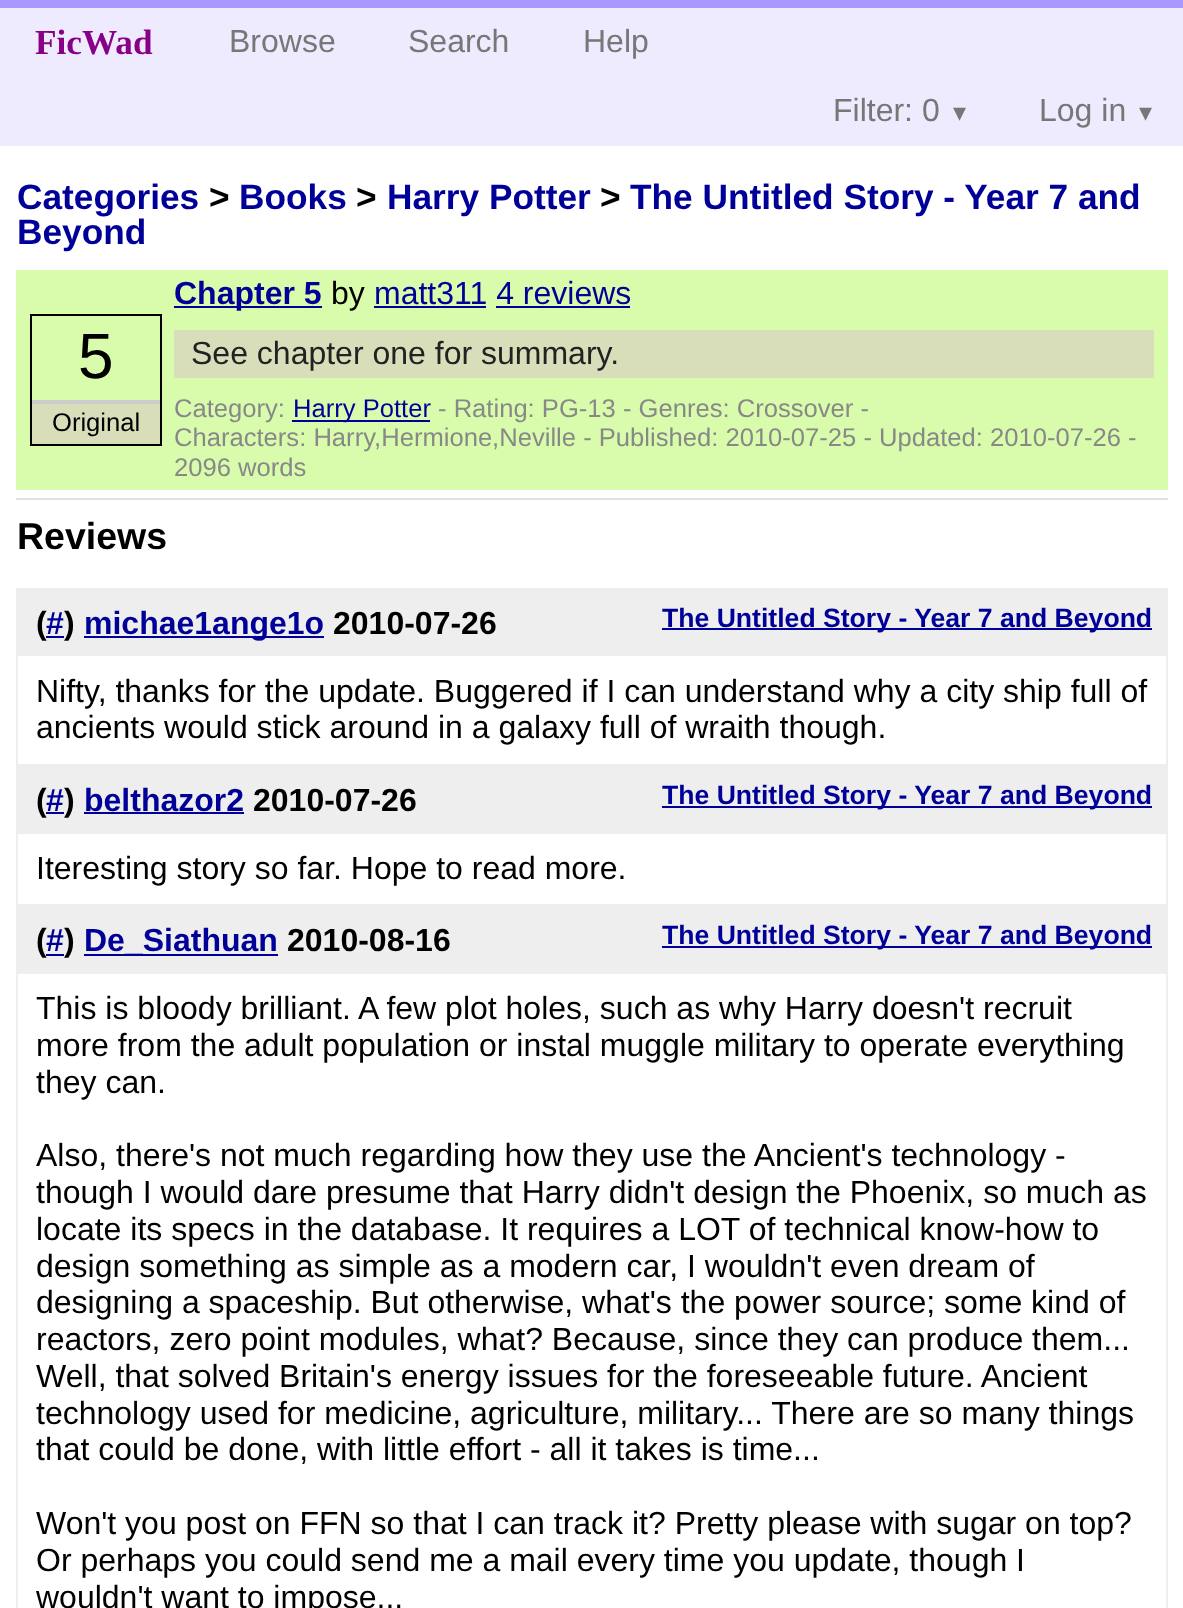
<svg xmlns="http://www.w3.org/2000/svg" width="1183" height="1608">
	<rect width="100%" height="100%" fill="#FFFFFF" />
	<rect x="0" y="8" width="1183" height="138" fill="#EEEBFF" />
	<rect x="0" y="0" width="1183" height="8" fill="#A899FF" />
	<text x="35" y="54" font-family="Liberation Serif" font-size="35.25" font-weight="700" fill="#880088">FicWad</text>
	<g font-family="Liberation Sans" font-size="32" fill="#777777">
		<text x="229" y="52">Browse</text>
		<text x="408" y="52">Search</text>
		<text x="583" y="52">Help</text>
		<text x="833" y="121">Filter: 0</text>
	</g>
	<text x="953" y="121" font-family="DejaVu Sans" font-size="26" fill="#777777">▾</text>
	<text x="1039" y="121" font-family="Liberation Sans" font-size="32" fill="#777777">Log in</text>
	<text x="1139" y="121" font-family="DejaVu Sans" font-size="26" fill="#777777">▾</text>
	<text x="17" y="209" font-family="Liberation Sans" font-size="35.25" font-weight="700" fill="#000099">Categories</text>
	<text x="209" y="209" font-family="Liberation Sans" font-size="35.25" font-weight="700" fill="#000000">&gt;</text>
	<text x="239" y="209" font-family="Liberation Sans" font-size="35.25" font-weight="700" fill="#000099">Books</text>
	<text x="356" y="209" font-family="Liberation Sans" font-size="35.25" font-weight="700" fill="#000000">&gt;</text>
	<text x="387" y="209" font-family="Liberation Sans" font-size="35.25" font-weight="700" fill="#000099">Harry Potter</text>
	<text x="600" y="209" font-family="Liberation Sans" font-size="35.25" font-weight="700" fill="#000000">&gt;</text>
	<g font-family="Liberation Sans" font-size="35.25" font-weight="700" fill="#000099">
		<text x="630" y="209">The Untitled Story - Year 7 and</text>
		<text x="17" y="244">Beyond</text>
	</g>
	<rect x="16" y="498" width="1152" height="2" fill="#E0E0E0" />
	<rect x="16" y="270" width="1152" height="220" fill="#D8FCAC" />
	<rect x="174" y="306" width="148" height="2" fill="#000099" />
	<text x="174" y="304" font-family="Liberation Sans" font-size="32" font-weight="700" fill="#000099">Chapter 5</text>
	<text x="331" y="304" font-family="Liberation Sans" font-size="32" fill="#000000">by</text>
	<text x="374" y="304" font-family="Liberation Sans" font-size="32" fill="#000099">matt311 4 reviews</text>
	<rect x="374" y="306" width="112" height="2" fill="#000099" />
	<rect x="496" y="306" width="134" height="2" fill="#000099" />
	<rect x="31" y="315" width="130" height="130" fill="none" stroke="#000000" stroke-width="2" />
	<text x="78" y="378" font-family="Liberation Sans" font-size="64" fill="#000000">5</text>
	<rect x="32" y="404" width="128" height="40" fill="#D8DEBA" />
	<rect x="32" y="400" width="128" height="4" fill="#CCCCCC" />
	<text x="52" y="431" font-family="Liberation Sans" font-size="25.6" fill="#000000">Original</text>
	<rect x="174" y="330" width="980" height="48" fill="#D8DEBA" />
	<text x="191" y="364" font-family="Liberation Sans" font-size="32" fill="#222222">See chapter one for summary.</text>
	<text x="174" y="417" font-family="Liberation Sans" font-size="25.6" fill="#888888">Category:</text>
	<rect x="292" y="420" width="138" height="2" fill="#000099" />
	<text x="293" y="417" font-family="Liberation Sans" font-size="25.6" fill="#000099">Harry Potter</text>
	<g font-family="Liberation Sans" font-size="25.6" fill="#888888">
		<text x="438" y="417">- Rating: PG-13 - Genres: Crossover -</text>
		<text x="174" y="446">Characters: Harry,Hermione,Neville - Published: 2010-07-25 - Updated: 2010-07-26 -</text>
		<text x="174" y="476">2096 words</text>
	</g>
	<text x="17" y="549" font-family="Liberation Sans" font-size="37.5" font-weight="700" fill="#000000">Reviews</text>
	<rect x="17" y="589" width="1150" height="176" fill="none" stroke="#EEEEEE" stroke-width="2" />
	<rect x="18" y="590" width="1148" height="66" fill="#EEEEEE" />
	<text x="36" y="634" font-family="Liberation Sans" font-size="32" font-weight="700" fill="#000000">(</text>
	<text x="46" y="634" font-family="Liberation Sans" font-size="32" font-weight="700" fill="#000099">#</text>
	<rect x="46" y="636" width="18" height="2" fill="#000099" />
	<text x="64" y="634" font-family="Liberation Sans" font-size="32" font-weight="700" fill="#000000">)</text>
	<rect x="84" y="636" width="240" height="2" fill="#000099" />
	<text x="84" y="634" font-family="Liberation Sans" font-size="32" font-weight="700" fill="#000099">michae1ange1o</text>
	<text x="333" y="634" font-family="Liberation Sans" font-size="32" font-weight="700" fill="#000000">2010-07-26</text>
	<rect x="662" y="628" width="490" height="2" fill="#000099" />
	<text x="662" y="627" font-family="Liberation Sans" font-size="26.6" font-weight="700" fill="#000099">The Untitled Story - Year 7 and Beyond</text>
	<g font-family="Liberation Sans" font-size="32" fill="#000000">
		<text x="36" y="702">Nifty, thanks for the update. Buggered if I can understand why a city ship full of</text>
		<text x="36" y="738">ancients would stick around in a galaxy full of wraith though.</text>
	</g>
	<rect x="17" y="767" width="1150" height="138" fill="none" stroke="#EEEEEE" stroke-width="2" />
	<rect x="18" y="768" width="1148" height="66" fill="#EEEEEE" />
	<text x="36" y="811" font-family="Liberation Sans" font-size="32" font-weight="700" fill="#000000">(</text>
	<text x="46" y="811" font-family="Liberation Sans" font-size="32" font-weight="700" fill="#000099">#</text>
	<rect x="46" y="812" width="18" height="2" fill="#000099" />
	<text x="64" y="811" font-family="Liberation Sans" font-size="32" font-weight="700" fill="#000000">)</text>
	<text x="84" y="811" font-family="Liberation Sans" font-size="32" font-weight="700" fill="#000099">belthazor2</text>
	<rect x="84" y="812" width="160" height="2" fill="#000099" />
	<text x="253" y="811" font-family="Liberation Sans" font-size="32" font-weight="700" fill="#000000">2010-07-26</text>
	<rect x="662" y="806" width="490" height="2" fill="#000099" />
	<text x="662" y="804" font-family="Liberation Sans" font-size="26.6" font-weight="700" fill="#000099">The Untitled Story - Year 7 and Beyond</text>
	<text x="36" y="879" font-family="Liberation Sans" font-size="32" fill="#000000">Iteresting story so far. Hope to read more.</text>
	<rect x="17" y="907" width="1150" height="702" fill="none" stroke="#EEEEEE" stroke-width="2" />
	<rect x="18" y="908" width="1148" height="66" fill="#EEEEEE" />
	<text x="36" y="951" font-family="Liberation Sans" font-size="32" font-weight="700" fill="#000000">(</text>
	<text x="46" y="951" font-family="Liberation Sans" font-size="32" font-weight="700" fill="#000099">#</text>
	<rect x="46" y="954" width="18" height="2" fill="#000099" />
	<text x="64" y="951" font-family="Liberation Sans" font-size="32" font-weight="700" fill="#000000">)</text>
	<rect x="84" y="954" width="194" height="2" fill="#000099" />
	<text x="84" y="951" font-family="Liberation Sans" font-size="32" font-weight="700" fill="#000099">De_Siathuan</text>
	<text x="287" y="951" font-family="Liberation Sans" font-size="32" font-weight="700" fill="#000000">2010-08-16</text>
	<rect x="662" y="946" width="490" height="2" fill="#000099" />
	<text x="662" y="944" font-family="Liberation Sans" font-size="26.6" font-weight="700" fill="#000099">The Untitled Story - Year 7 and Beyond</text>
	<g font-family="Liberation Sans" font-size="32" fill="#000000">
		<text x="36" y="1019">This is bloody brilliant. A few plot holes, such as why Harry doesn't recruit</text>
		<text x="36" y="1056">more from the adult population or instal muggle military to operate everything</text>
		<text x="36" y="1093">they can.</text>
		<text x="36" y="1166">Also, there's not much regarding how they use the Ancient's technology -</text>
		<text x="36" y="1203">though I would dare presume that Harry didn't design the Phoenix, so much as</text>
		<text x="36" y="1240">locate its specs in the database. It requires a LOT of technical know-how to</text>
		<text x="36" y="1277">design something as simple as a modern car, I wouldn't even dream of</text>
		<text x="36" y="1313">designing a spaceship. But otherwise, what's the power source; some kind of</text>
		<text x="36" y="1350">reactors, zero point modules, what? Because, since they can produce them...</text>
		<text x="36" y="1387">Well, that solved Britain's energy issues for the foreseeable future. Ancient</text>
		<text x="36" y="1424">technology used for medicine, agriculture, military... There are so many things</text>
		<text x="36" y="1460">that could be done, with little effort - all it takes is time...</text>
		<text x="36" y="1534">Won't you post on FFN so that I can track it? Pretty please with sugar on top?</text>
		<text x="36" y="1571">Or perhaps you could send me a mail every time you update, though I</text>
		<text x="36" y="1608">wouldn't want to impose...</text>
	</g>
</svg>
